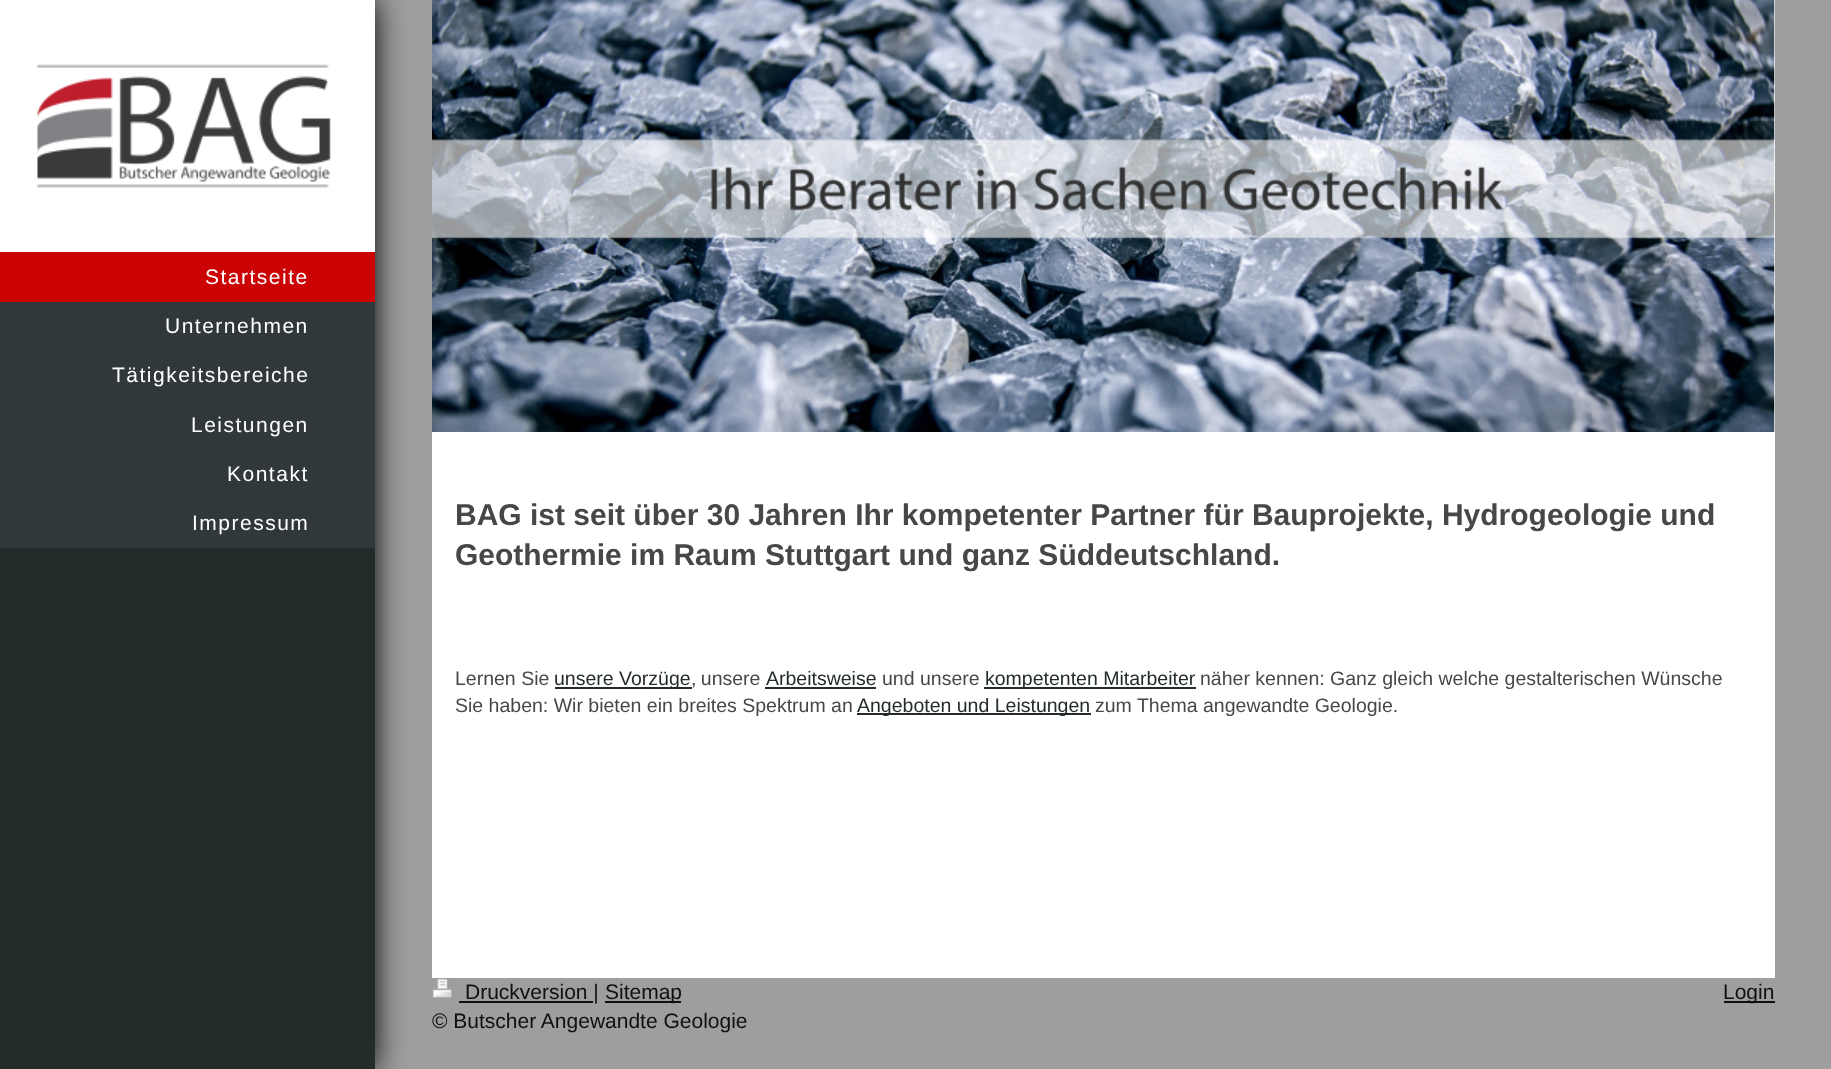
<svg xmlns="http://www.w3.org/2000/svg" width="1831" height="1069">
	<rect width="100%" height="100%" fill="#9E9E9E" />
	<rect x="0" y="0" width="375" height="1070" fill="#000000" filter="blur(15px)" />
	<rect x="0" y="548" width="375" height="521" fill="#242B2B" />
	<rect x="0" y="0" width="375" height="252" fill="#FFFFFF" />
	<image x="37" y="64" width="294" height="124" href="assets/img1.png" />
	<rect x="0" y="302" width="375" height="246" fill="#30383C" />
	<rect x="0" y="252" width="375" height="50" fill="#CC0305" />
	<g font-family="Liberation Sans" font-size="21" letter-spacing="1.5" fill="#FFFFFF">
		<text x="205" y="284">Startseite</text>
		<text x="165" y="333">Unternehmen</text>
		<text x="112" y="382">Tätigkeitsbereiche</text>
		<text x="191" y="432">Leistungen</text>
		<text x="227" y="481">Kontakt</text>
		<text x="192" y="530">Impressum</text>
	</g>
	<rect x="432" y="0" width="1343" height="978" fill="#FFFFFF" />
	<image x="432" y="0" width="1343" height="432" href="assets/img2.png" />
	<g font-family="Liberation Sans" font-size="30" font-weight="700" fill="#474747">
		<text x="455" y="525">BAG ist seit über 30 Jahren Ihr kompetenter Partner für Bauprojekte, Hydrogeologie und</text>
		<text x="455" y="565">Geothermie im Raum Stuttgart und ganz Süddeutschland.</text>
	</g>
	<text x="455" y="685" font-family="Liberation Sans" font-size="19.5" fill="#474747">Lernen Sie</text>
	<rect x="555" y="687" width="137" height="2" fill="#242B2B" />
	<text x="554" y="685" font-family="Liberation Sans" font-size="19.5" fill="#242B2B">unsere Vorzüge</text>
	<text x="691" y="685" word-spacing="-1" font-family="Liberation Sans" font-size="19.5" fill="#474747">, unsere</text>
	<text x="766" y="685" font-family="Liberation Sans" font-size="19.5" fill="#242B2B">Arbeitsweise</text>
	<rect x="765" y="687" width="111" height="2" fill="#242B2B" />
	<text x="882" y="685" font-family="Liberation Sans" font-size="19.5" fill="#474747">und unsere</text>
	<rect x="984" y="687" width="212" height="2" fill="#242B2B" />
	<text x="985" y="685" font-family="Liberation Sans" font-size="19.5" fill="#242B2B">kompetenten Mitarbeiter</text>
	<g font-family="Liberation Sans" font-size="19.5" fill="#474747">
		<text x="1200" y="685">näher kennen: Ganz gleich welche gestalterischen Wünsche</text>
		<text x="455" y="712">Sie haben: Wir bieten ein breites Spektrum an</text>
	</g>
	<rect x="857" y="713" width="234" height="2" fill="#242B2B" />
	<text x="857" y="712" font-family="Liberation Sans" font-size="19.5" fill="#242B2B">Angeboten und Leistungen</text>
	<text x="1095" y="712" font-family="Liberation Sans" font-size="19.5" fill="#474747">zum Thema angewandte Geologie.</text>
	<image x="432" y="978" width="21" height="21" href="assets/img3.png" />
	<rect x="459" y="1001" width="134" height="2" fill="#101010" />
	<text x="465" y="999" font-family="Liberation Sans" font-size="21" fill="#101010">Druckversion |</text>
	<rect x="605" y="1001" width="76" height="2" fill="#101010" />
	<g font-family="Liberation Sans" font-size="21" fill="#101010">
		<text x="605" y="999">Sitemap</text>
		<text x="432" y="1028">© Butscher Angewandte Geologie</text>
	</g>
	<rect x="1724" y="1001" width="51" height="2" fill="#101010" />
	<text x="1723" y="999" font-family="Liberation Sans" font-size="21" fill="#101010">Login</text>
</svg>
